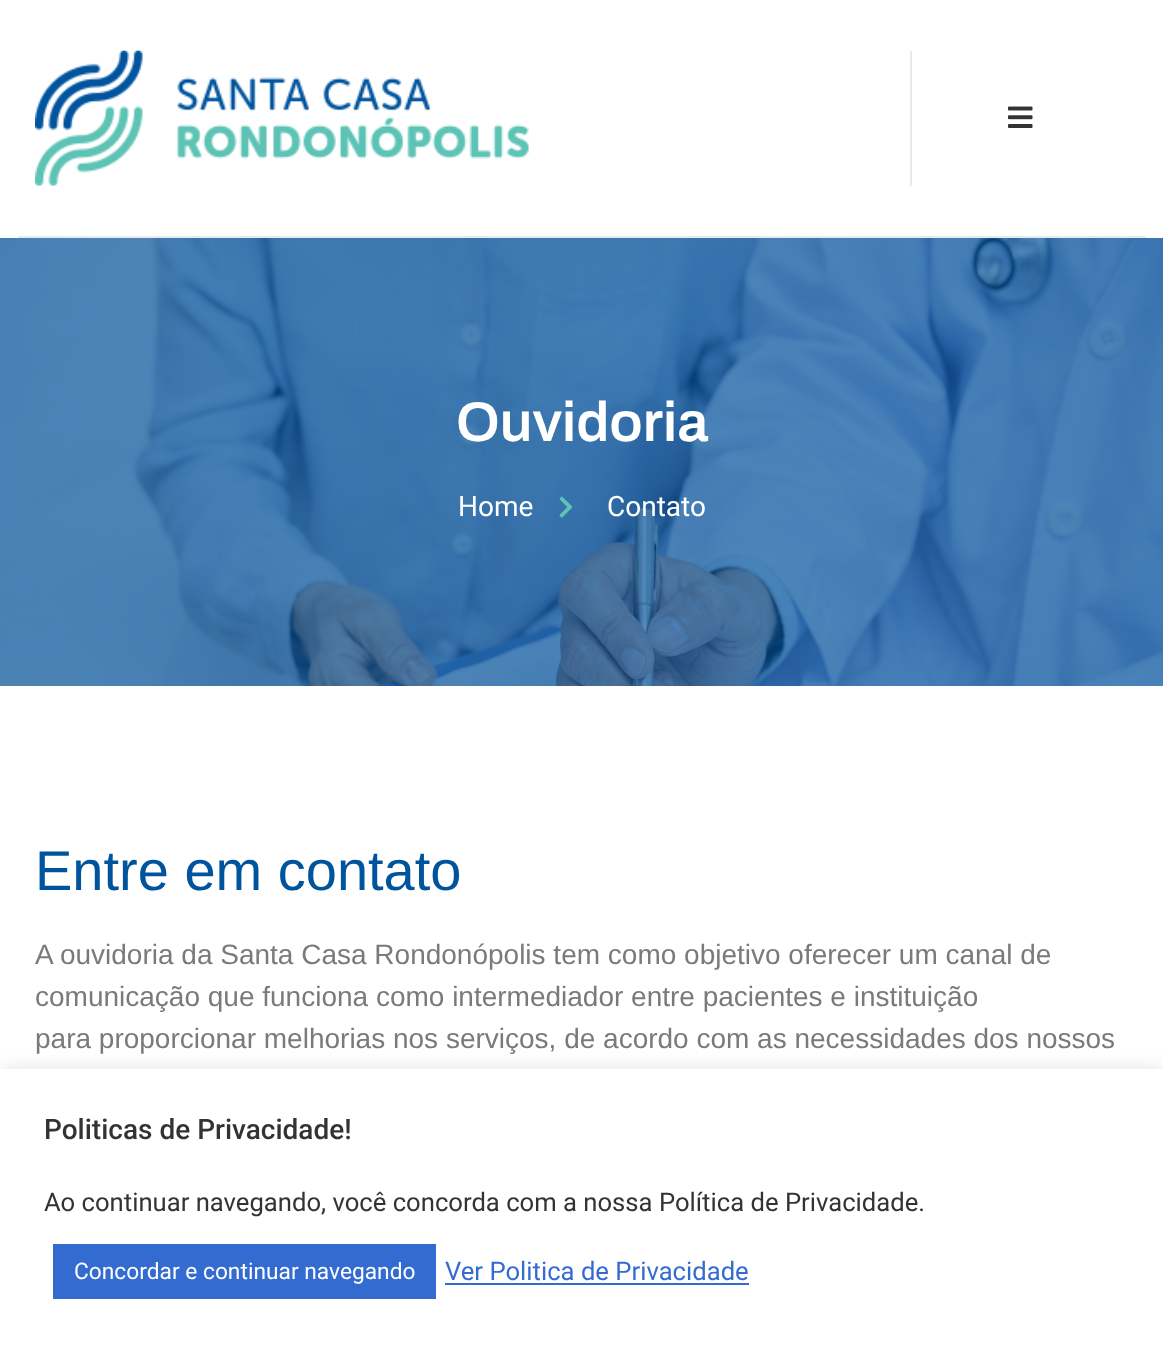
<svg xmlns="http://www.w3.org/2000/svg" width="1163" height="1351">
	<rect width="100%" height="100%" fill="#FFFFFF" />
	<rect x="18" y="236" width="1128" height="2" fill="#EAEAEA" />
	<image x="35" y="50" width="494" height="136" href="assets/img1.png" />
	<rect x="910" y="51" width="2" height="135" fill="#EAEAEA" />
	<image x="1008" y="106" width="25" height="22" href="assets/img2.png" />
	<image x="0" y="238" width="1163" height="448" href="assets/img3.png" />
	<text x="456" y="441" font-family="Archivo" font-size="56" font-weight="600" fill="#FFFFFF">Ouvidoria</text>
	<text x="458" y="516" font-family="Roboto" font-size="28" fill="#FFFFFF">Home</text>
	<image x="559" y="496" width="14" height="22" href="assets/img4.png" />
	<text x="607" y="516" font-family="Roboto" font-size="28" fill="#FFFFFF">Contato</text>
	<text x="35" y="890" font-family="Liberation Sans" font-size="56" fill="#00549E">Entre em contato</text>
	<g font-family="Liberation Sans" font-size="28" fill="#7A7A7A">
		<text x="35" y="964">A ouvidoria da Santa Casa Rondonópolis tem como objetivo oferecer um canal de</text>
		<text x="35" y="1006">comunicação que funciona como intermediador entre pacientes e instituição</text>
		<text x="35" y="1048">para proporcionar melhorias nos serviços, de acordo com as necessidades dos nossos</text>
	</g>
	<rect x="0" y="1068" width="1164" height="281" fill="#ACABAB" fill-opacity="0.3" filter="blur(9px)" />
	<rect x="0" y="1069" width="1163" height="282" fill="#FFFFFF" />
	<text x="44" y="1139" font-family="Roboto" font-size="28" font-weight="500" fill="#333333">Politicas de Privacidade!</text>
	<text x="44" y="1211" font-family="Roboto" font-size="25.65" fill="#333333">Ao continuar navegando, você concorda com a nossa Política de Privacidade.</text>
	<rect x="53" y="1244" width="383" height="55" fill="#346BD1" />
	<text x="74" y="1279" font-family="Roboto" font-size="22.75" fill="#FFFFFF">Concordar e continuar navegando</text>
	<text x="445" y="1280" font-family="Roboto" font-size="25.65" fill="#346BD1">Ver Politica de Privacidade</text>
	<rect x="445" y="1283" width="304" height="2" fill="#346BD1" />
</svg>
